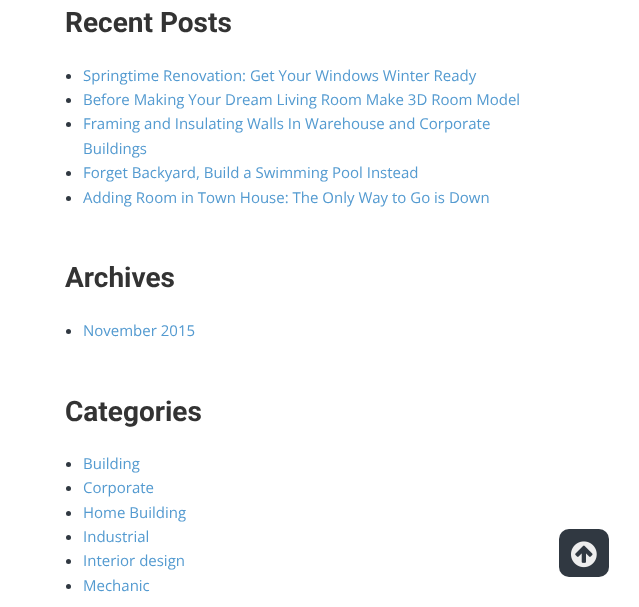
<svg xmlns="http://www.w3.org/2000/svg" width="639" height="607">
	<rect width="100%" height="100%" fill="#FFFFFF" />
	<text x="65" y="32" font-family="Roboto" font-size="28" font-weight="700" fill="#333333">Recent Posts</text>
	<circle cx="68.5" cy="76.5" r="2.5" fill="#303841" />
	<text x="83" y="81" font-family="Open Sans" font-size="15" fill="#539AD0">Springtime Renovation: Get Your Windows Winter Ready</text>
	<circle cx="68.5" cy="100.5" r="2.5" fill="#303841" />
	<text x="83" y="105" font-family="Open Sans" font-size="15" fill="#539AD0">Before Making Your Dream Living Room Make 3D Room Model</text>
	<circle cx="68.5" cy="124.5" r="2.5" fill="#303841" />
	<g font-family="Open Sans" font-size="15" fill="#539AD0">
		<text x="83" y="129">Framing and Insulating Walls In Warehouse and Corporate</text>
		<text x="83" y="154">Buildings</text>
	</g>
	<circle cx="68.5" cy="173.5" r="2.5" fill="#303841" />
	<text x="83" y="178" font-family="Open Sans" font-size="15" fill="#539AD0">Forget Backyard, Build a Swimming Pool Instead</text>
	<circle cx="68.5" cy="198.5" r="2.5" fill="#303841" />
	<text x="83" y="203" font-family="Open Sans" font-size="15" fill="#539AD0">Adding Room in Town House: The Only Way to Go is Down</text>
	<text x="65" y="287" font-family="Roboto" font-size="28" font-weight="700" fill="#333333">Archives</text>
	<circle cx="68.5" cy="331.5" r="2.5" fill="#303841" />
	<text x="83" y="336" font-family="Open Sans" font-size="15" fill="#539AD0">November 2015</text>
	<text x="65" y="421" font-family="Roboto" font-size="28" font-weight="700" fill="#333333">Categories</text>
	<circle cx="68.5" cy="464.5" r="2.5" fill="#303841" />
	<text x="83" y="469" font-family="Open Sans" font-size="15" fill="#539AD0">Building</text>
	<circle cx="68.5" cy="488.5" r="2.5" fill="#303841" />
	<text x="83" y="493" font-family="Open Sans" font-size="15" fill="#539AD0">Corporate</text>
	<circle cx="68.5" cy="513.5" r="2.5" fill="#303841" />
	<text x="83" y="518" font-family="Open Sans" font-size="15" fill="#539AD0">Home Building</text>
	<circle cx="68.5" cy="537.5" r="2.5" fill="#303841" />
	<text x="83" y="542" font-family="Open Sans" font-size="15" fill="#539AD0">Industrial</text>
	<circle cx="68.5" cy="561.5" r="2.5" fill="#303841" />
	<text x="83" y="566" font-family="Open Sans" font-size="15" fill="#539AD0">Interior design</text>
	<circle cx="68.5" cy="586.5" r="2.5" fill="#303841" />
	<text x="83" y="591" font-family="Open Sans" font-size="15" fill="#539AD0">Mechanic</text>
	<rect x="559" y="529" width="50" height="48" rx="10" fill="#303841" />
	<image x="571" y="541" width="26" height="27" href="assets/img1.png" />
</svg>
